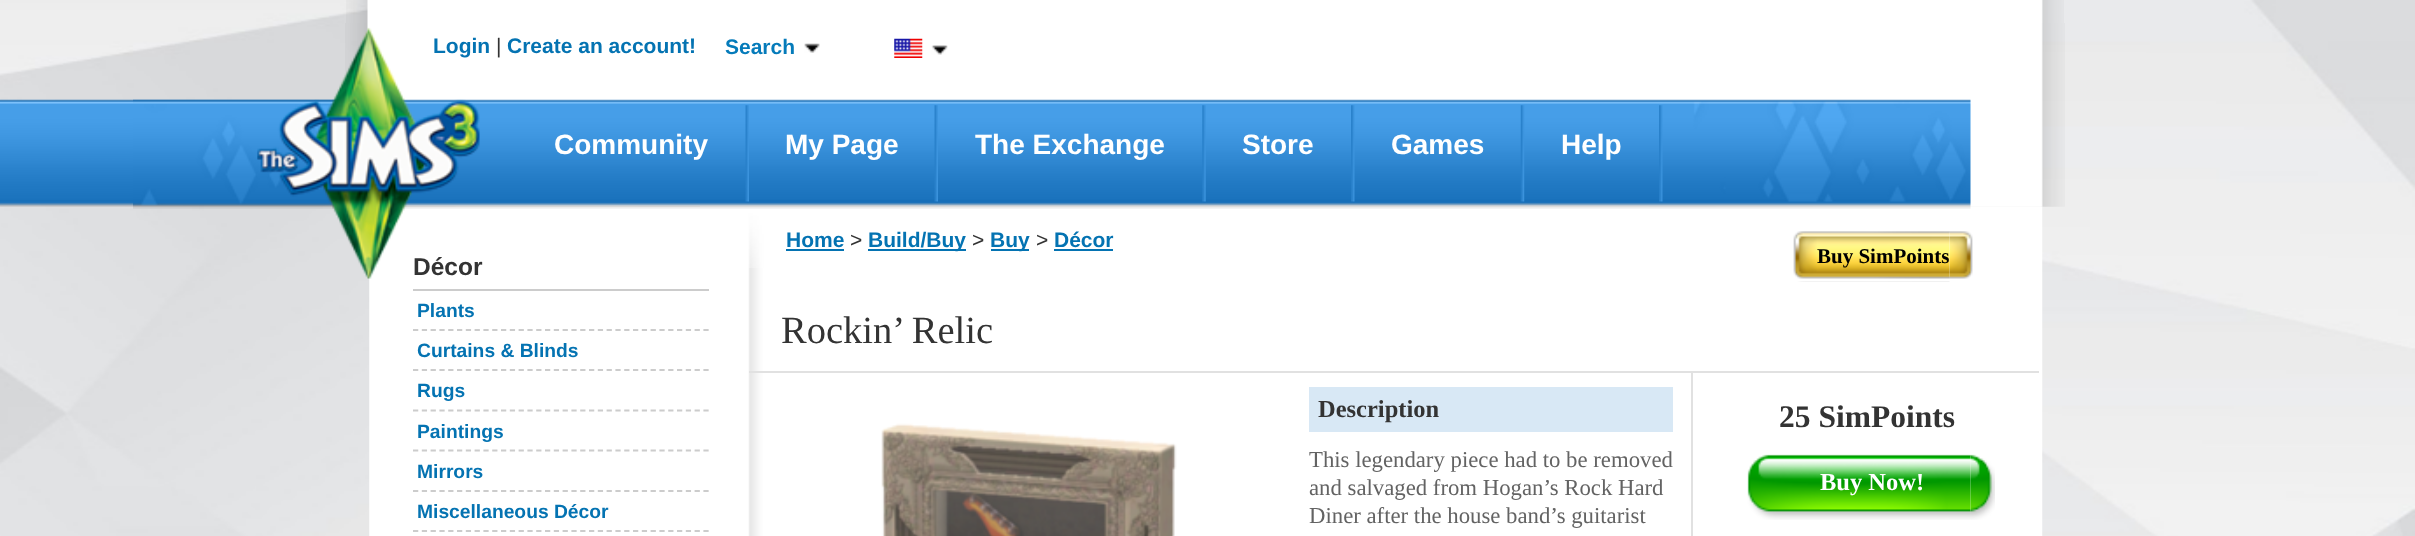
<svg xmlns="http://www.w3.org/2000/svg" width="2415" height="536">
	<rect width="100%" height="100%" fill="#FFFFFF" />
	<image x="0" y="0" width="2415" height="536" href="assets/img1.png" />
	<image x="0" y="99" width="700" height="108" href="assets/img5.png" />
	<image x="345" y="23" width="1720" height="184" href="assets/img13.png" />
	<image x="372" y="207" width="1671" height="61" href="assets/img14.png" />
	<image x="133" y="99" width="1838" height="110" href="assets/img6.png" />
	<image x="369" y="268" width="1674" height="268" href="assets/img15.png" />
	<image x="257" y="27" width="223" height="252" href="assets/img7.png" />
	<text x="433" y="53" font-family="Liberation Sans" font-size="21" font-weight="700" fill="#0473B2">Login</text>
	<text x="496" y="53" font-family="Liberation Sans" font-size="21" fill="#333333">|</text>
	<text x="507" y="53" font-family="Liberation Sans" font-size="21" font-weight="700" fill="#0473B2">Create an account!</text>
	<image x="804" y="43" width="16" height="10" href="assets/img2.png" />
	<text x="725" y="54" font-family="Liberation Sans" font-size="21" font-weight="700" fill="#057BBA">Search</text>
	<image x="931" y="45" width="17" height="10" href="assets/img3.png" />
	<image x="894" y="38" width="29" height="20" href="assets/img4.png" />
	<image x="745" y="105" width="4" height="97" href="assets/img8.png" />
	<text x="554" y="154" font-family="Liberation Sans" font-size="28" font-weight="700" fill="#FFFFFF">Community</text>
	<image x="934" y="105" width="4" height="97" href="assets/img8.png" />
	<text x="785" y="154" font-family="Liberation Sans" font-size="28" font-weight="700" fill="#FFFFFF">My Page</text>
	<image x="1202" y="105" width="4" height="97" href="assets/img9.png" />
	<text x="975" y="154" font-family="Liberation Sans" font-size="28" font-weight="700" fill="#FFFFFF">The Exchange</text>
	<image x="1351" y="105" width="4" height="97" href="assets/img10.png" />
	<text x="1242" y="154" font-family="Liberation Sans" font-size="28" font-weight="700" fill="#FFFFFF">Store</text>
	<image x="1520" y="105" width="5" height="97" href="assets/img11.png" />
	<text x="1391" y="154" font-family="Liberation Sans" font-size="28" font-weight="700" fill="#FFFFFF">Games</text>
	<image x="1659" y="105" width="4" height="97" href="assets/img10.png" />
	<text x="1561" y="154" font-family="Liberation Sans" font-size="28" font-weight="700" fill="#FFFFFF">Help</text>
	<image x="346" y="0" width="1718" height="23" href="assets/img12.png" />
	<rect x="413" y="289" width="296" height="2" fill="#CCCCCC" />
	<text x="413" y="275" font-family="Liberation Sans" font-size="24.5" font-weight="700" fill="#333333">Décor</text>
	<path d="M413 330H709" fill="none" stroke="#CCCCCC" stroke-width="1.8" stroke-dasharray="5.25 3.55" />
	<text x="417" y="317" font-family="Liberation Sans" font-size="19.25" font-weight="700" fill="#0473B2">Plants</text>
	<path d="M413 370H709" fill="none" stroke="#CCCCCC" stroke-width="1.8" stroke-dasharray="5.25 3.55" />
	<text x="417" y="357" font-family="Liberation Sans" font-size="19.25" font-weight="700" fill="#0473B2">Curtains &amp; Blinds</text>
	<path d="M413 410.5H709" fill="none" stroke="#CCCCCC" stroke-width="1.8" stroke-dasharray="5.25 3.55" />
	<text x="417" y="397" font-family="Liberation Sans" font-size="19.25" font-weight="700" fill="#0473B2">Rugs</text>
	<path d="M413 450.5H709" fill="none" stroke="#CCCCCC" stroke-width="1.8" stroke-dasharray="5.25 3.55" />
	<text x="417" y="438" font-family="Liberation Sans" font-size="19.25" font-weight="700" fill="#0473B2">Paintings</text>
	<path d="M413 491H709" fill="none" stroke="#CCCCCC" stroke-width="1.8" stroke-dasharray="5.25 3.55" />
	<text x="417" y="478" font-family="Liberation Sans" font-size="19.25" font-weight="700" fill="#0473B2">Mirrors</text>
	<path d="M413 531H709" fill="none" stroke="#CCCCCC" stroke-width="1.8" stroke-dasharray="5.25 3.55" />
	<text x="417" y="518" font-family="Liberation Sans" font-size="19.25" font-weight="700" fill="#0473B2">Miscellaneous Décor</text>
	<text x="786" y="247" font-family="Liberation Sans" font-size="21" font-weight="700" fill="#0473B2">Home</text>
	<rect x="786" y="249" width="58" height="2" fill="#0473B2" />
	<text x="850" y="247" font-family="Liberation Sans" font-size="21" fill="#333333">&gt;</text>
	<rect x="868" y="249" width="98" height="2" fill="#0473B2" />
	<text x="868" y="247" font-family="Liberation Sans" font-size="21" font-weight="700" fill="#0473B2">Build/Buy</text>
	<text x="972" y="247" font-family="Liberation Sans" font-size="21" fill="#333333">&gt;</text>
	<rect x="991" y="249" width="38" height="2" fill="#0473B2" />
	<text x="990" y="247" font-family="Liberation Sans" font-size="21" font-weight="700" fill="#0473B2">Buy</text>
	<text x="1036" y="247" font-family="Liberation Sans" font-size="21" fill="#333333">&gt;</text>
	<text x="1054" y="247" font-family="Liberation Sans" font-size="21" font-weight="700" fill="#0473B2">Décor</text>
	<rect x="1054" y="249" width="59" height="2" fill="#0473B2" />
	<image x="1949" y="231" width="24" height="48" href="assets/img16.png" />
	<image x="1793" y="231" width="157" height="51" href="assets/img17.png" />
	<text x="1817" y="263" font-family="Liberation Serif" font-size="21" font-weight="700" fill="#000000">Buy SimPoints</text>
	<text x="781" y="343" font-family="Liberation Serif" font-size="38.5" fill="#333333">Rockin’ Relic</text>
	<rect x="749" y="371" width="1290" height="2" fill="#E1E1E1" />
	<image x="881" y="423" width="296" height="113" href="assets/img18.png" />
	<rect x="1309" y="387" width="364" height="45" fill="#D8E8F5" />
	<text x="1318" y="417" font-family="Liberation Serif" font-size="24.5" font-weight="700" fill="#333333">Description</text>
	<g font-family="Liberation Serif" font-size="22.75" fill="#636363">
		<text x="1309" y="467">This legendary piece had to be removed</text>
		<text x="1309" y="495">and salvaged from Hogan’s Rock Hard</text>
		<text x="1309" y="523">Diner after the house band’s guitarist</text>
	</g>
	<rect x="1691" y="373" width="2" height="163" fill="#E1E1E1" />
	<text x="1779" y="427" font-family="Liberation Serif" font-size="31.5" font-weight="700" fill="#333333">25 SimPoints</text>
	<image x="1970" y="454" width="25" height="66" href="assets/img19.png" />
	<image x="1747" y="454" width="224" height="66" href="assets/img20.png" />
	<text x="1820" y="490" font-family="Liberation Serif" font-size="24.5" font-weight="700" fill="#FFFFFF">Buy Now!</text>
</svg>
